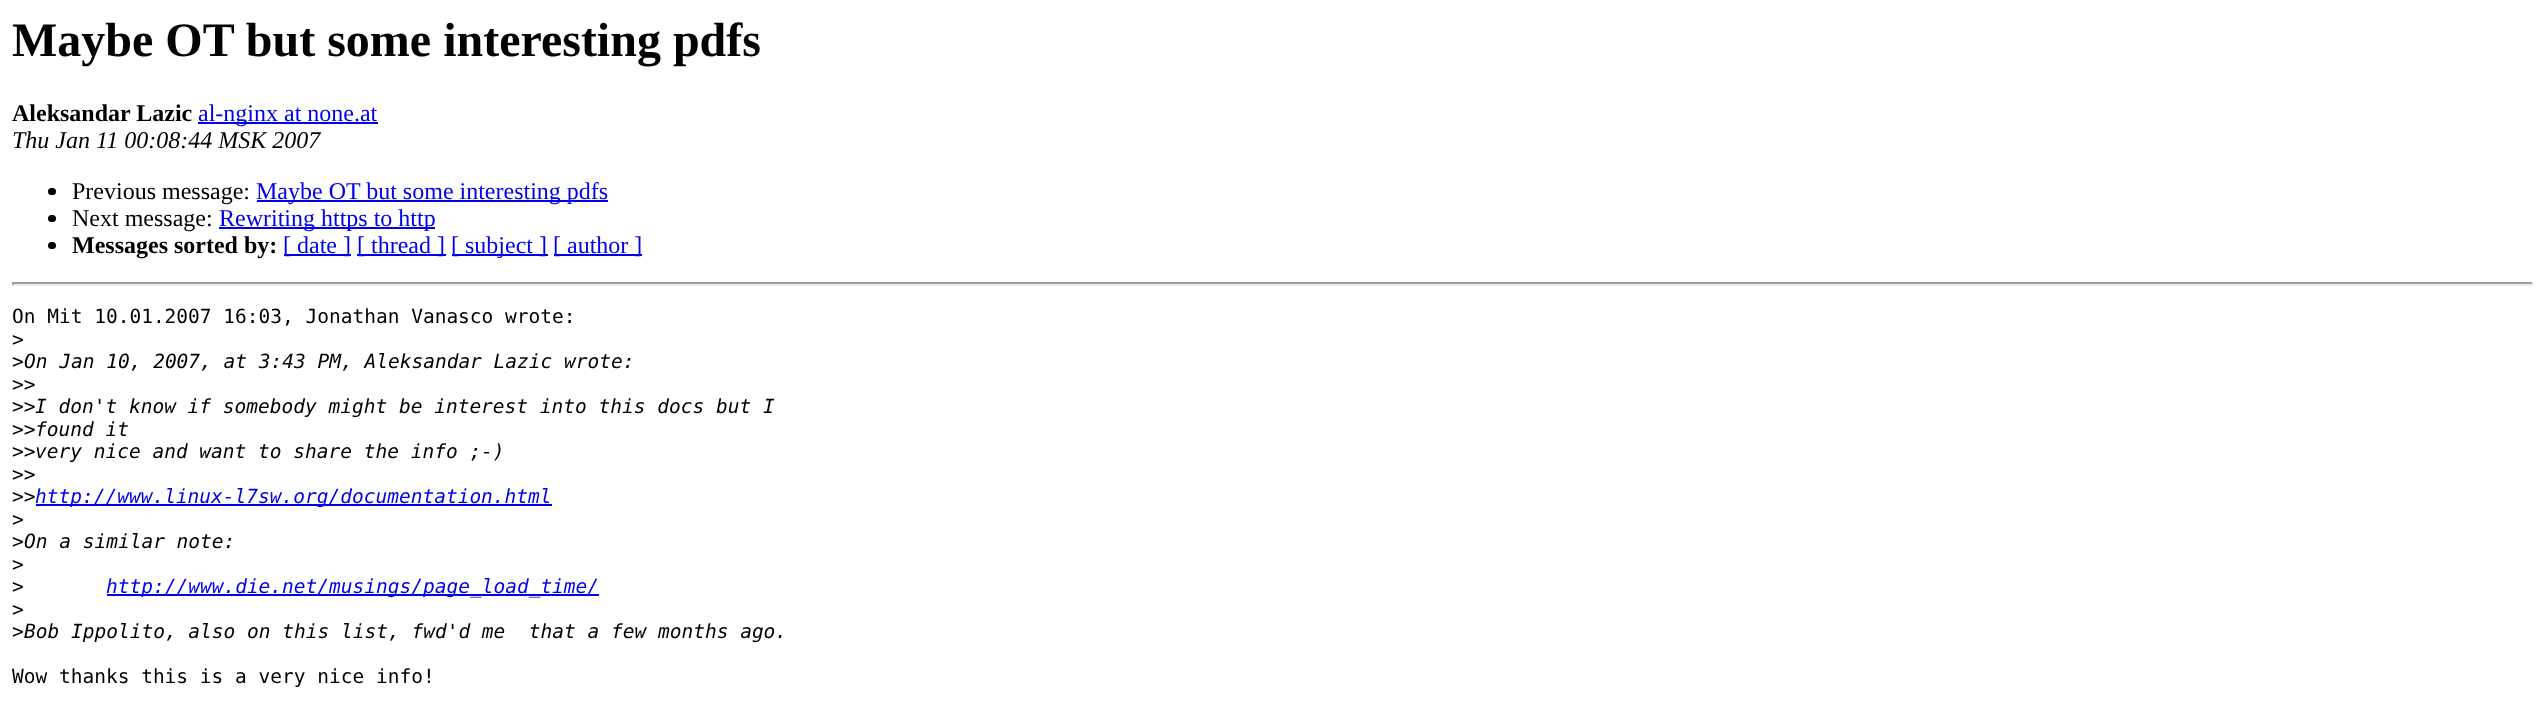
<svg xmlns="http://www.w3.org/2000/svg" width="2545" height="722">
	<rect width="100%" height="100%" fill="#FFFFFF" />
	<text x="12" y="56" font-family="Liberation Serif" font-size="48" font-weight="700" fill="#000000">Maybe OT but some interesting pdfs</text>
	<text x="12" y="121" font-family="Liberation Serif" font-size="24" font-weight="700" fill="#000000">Aleksandar Lazic</text>
	<rect x="198" y="122" width="180" height="2" fill="#0000EE" />
	<text x="198" y="121" font-family="Liberation Serif" font-size="24" fill="#0000EE">al-nginx at none.at</text>
	<text x="12" y="148" font-family="Liberation Serif" font-size="24" font-style="italic" fill="#000000">Thu Jan 11 00:08:44 MSK 2007</text>
	<rect x="48" y="188" width="8" height="7" rx="3.5" fill="#000000" />
	<text x="72" y="199" font-family="Liberation Serif" font-size="24" fill="#000000">Previous message:</text>
	<rect x="257" y="200" width="351" height="2" fill="#0000EE" />
	<text x="256" y="199" font-family="Liberation Serif" font-size="24" fill="#0000EE">Maybe OT but some interesting pdfs</text>
	<rect x="48" y="215" width="8" height="7" rx="3.5" fill="#000000" />
	<text x="72" y="226" font-family="Liberation Serif" font-size="24" fill="#000000">Next message:</text>
	<rect x="219" y="227" width="216" height="2" fill="#0000EE" />
	<text x="219" y="226" font-family="Liberation Serif" font-size="24" fill="#0000EE">Rewriting https to http</text>
	<rect x="48" y="242" width="8" height="7" rx="3.5" fill="#000000" />
	<text x="72" y="253" font-family="Liberation Serif" font-size="24" font-weight="700" fill="#000000">Messages sorted by:</text>
	<rect x="284" y="254" width="67" height="2" fill="#0000EE" />
	<text x="283" y="253" font-family="Liberation Serif" font-size="24" fill="#0000EE">[ date ]</text>
	<rect x="357" y="254" width="89" height="2" fill="#0000EE" />
	<text x="357" y="253" font-family="Liberation Serif" font-size="24" fill="#0000EE">[ thread ]</text>
	<rect x="452" y="254" width="96" height="2" fill="#0000EE" />
	<text x="451" y="253" font-family="Liberation Serif" font-size="24" fill="#0000EE">[ subject ]</text>
	<rect x="554" y="254" width="88" height="2" fill="#0000EE" />
	<text x="553" y="253" font-family="Liberation Serif" font-size="24" fill="#0000EE">[ author ]</text>
	<rect x="12" y="282" width="2522" height="2" fill="#9F9F9F" />
	<rect x="2532" y="282" width="2" height="3" fill="#EEEEEE" />
	<rect x="12" y="284" width="2522" height="2" fill="#EEEEEE" />
	<rect x="12" y="282" width="2" height="3" fill="#9F9F9F" />
	<g font-family="DejaVu Sans Mono" font-size="19.5" fill="#000000">
		<text x="12" y="323">On Mit 10.01.2007 16:03, Jonathan Vanasco wrote:</text>
		<text x="12" y="346">&gt;</text>
		<text x="12" y="368">&gt;</text>
	</g>
	<text x="24" y="368" font-family="DejaVu Sans Mono" font-size="19.5" font-style="italic" fill="#000000">On Jan 10, 2007, at 3:43 PM, Aleksandar Lazic wrote:</text>
	<g font-family="DejaVu Sans Mono" font-size="19.5" fill="#000000">
		<text x="12" y="391">&gt;&gt;</text>
		<text x="12" y="413">&gt;&gt;</text>
	</g>
	<text x="35" y="413" font-family="DejaVu Sans Mono" font-size="19.5" font-style="italic" fill="#000000">I don't know if somebody might be interest into this docs but I</text>
	<text x="12" y="436" font-family="DejaVu Sans Mono" font-size="19.5" fill="#000000">&gt;&gt;</text>
	<text x="35" y="436" font-family="DejaVu Sans Mono" font-size="19.5" font-style="italic" fill="#000000">found it</text>
	<text x="12" y="458" font-family="DejaVu Sans Mono" font-size="19.5" fill="#000000">&gt;&gt;</text>
	<text x="35" y="458" font-family="DejaVu Sans Mono" font-size="19.5" font-style="italic" fill="#000000">very nice and want to share the info ;-)</text>
	<g font-family="DejaVu Sans Mono" font-size="19.5" fill="#000000">
		<text x="12" y="481">&gt;&gt;</text>
		<text x="12" y="503">&gt;&gt;</text>
	</g>
	<rect x="36" y="504" width="516" height="2" fill="#0000EE" />
	<text x="35" y="503" font-family="DejaVu Sans Mono" font-size="19.5" font-style="italic" fill="#0000EE">http://www.linux-l7sw.org/documentation.html</text>
	<g font-family="DejaVu Sans Mono" font-size="19.5" fill="#000000">
		<text x="12" y="526">&gt;</text>
		<text x="12" y="548">&gt;</text>
	</g>
	<text x="24" y="548" font-family="DejaVu Sans Mono" font-size="19.5" font-style="italic" fill="#000000">On a similar note:</text>
	<g font-family="DejaVu Sans Mono" font-size="19.5" fill="#000000">
		<text x="12" y="571">&gt;</text>
		<text x="12" y="593">&gt;</text>
	</g>
	<rect x="107" y="594" width="492" height="2" fill="#0000EE" />
	<text x="106" y="593" font-family="DejaVu Sans Mono" font-size="19.5" font-style="italic" fill="#0000EE">http://www.die.net/musings/page_load_time/</text>
	<g font-family="DejaVu Sans Mono" font-size="19.5" fill="#000000">
		<text x="12" y="616">&gt;</text>
		<text x="12" y="638">&gt;</text>
	</g>
	<text x="24" y="638" font-family="DejaVu Sans Mono" font-size="19.5" font-style="italic" fill="#000000" xml:space="preserve">Bob Ippolito, also on this list, fwd'd me  that a few months ago.</text>
	<text x="12" y="683" font-family="DejaVu Sans Mono" font-size="19.5" fill="#000000">Wow thanks this is a very nice info!</text>
</svg>
